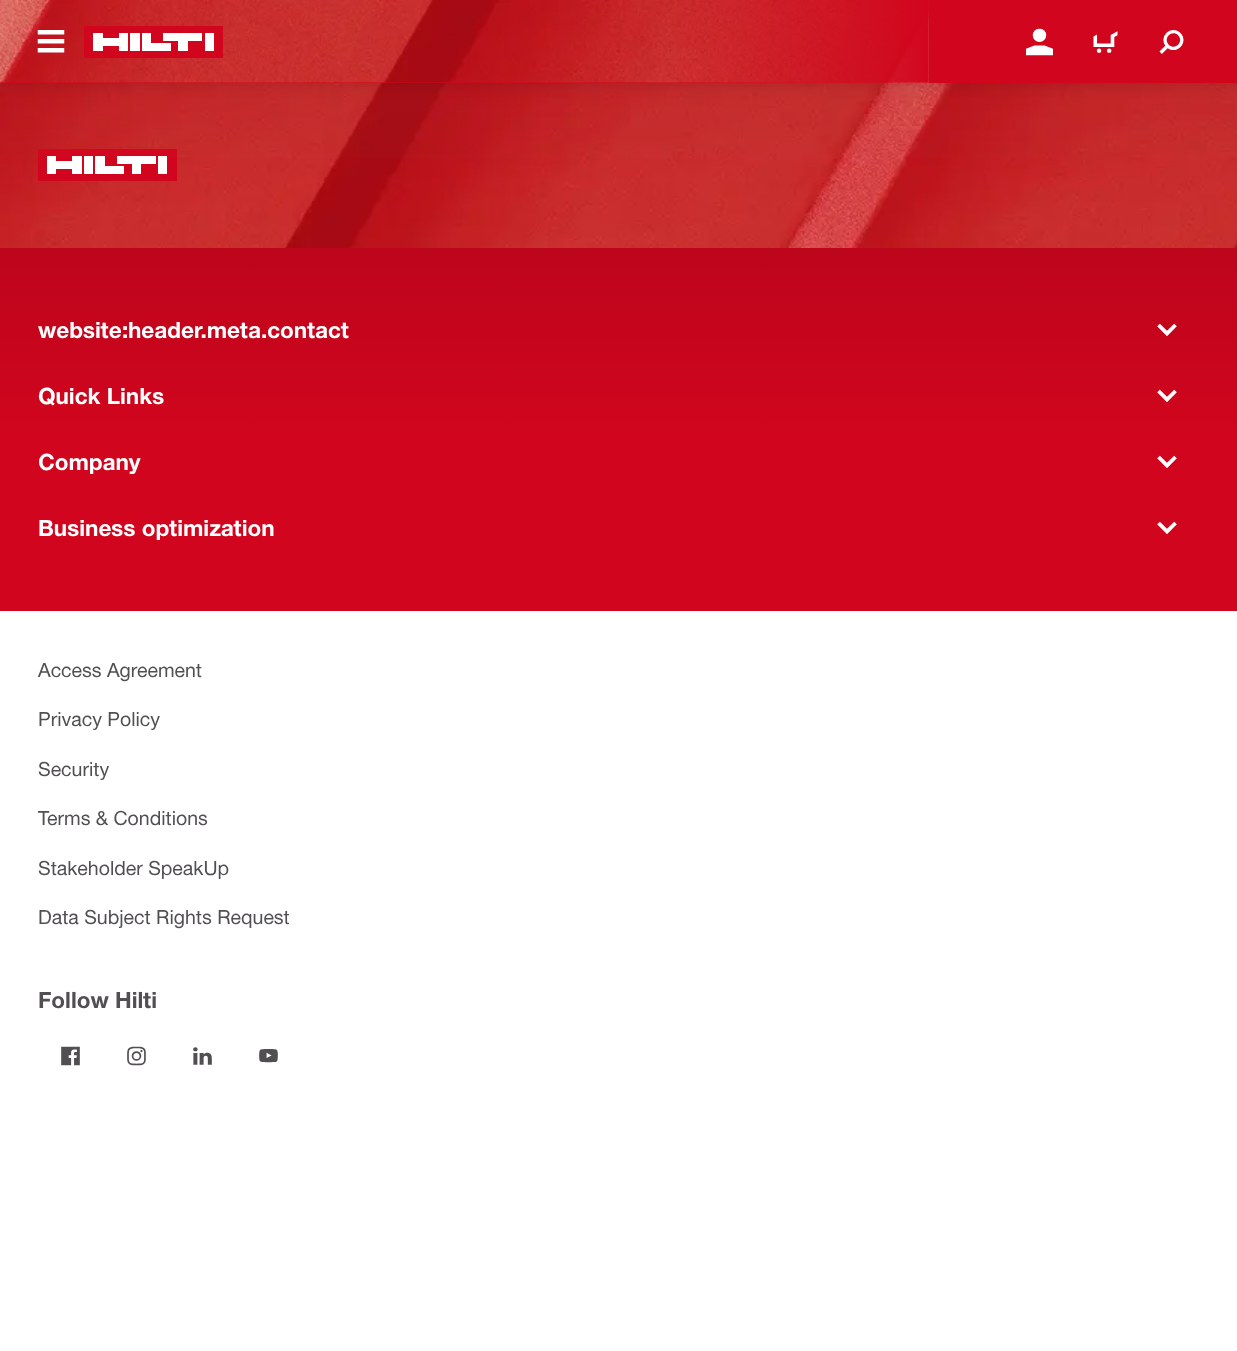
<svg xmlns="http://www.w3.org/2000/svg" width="1237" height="1351">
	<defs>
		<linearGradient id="g1" gradientUnits="userSpaceOnUse" x1="619" y1="82" x2="619" y2="215"><stop offset="0" stop-color="#7D7565" stop-opacity="0.05" /><stop offset="1" stop-color="#7D7565" stop-opacity="0" /></linearGradient>
		<linearGradient id="g2" gradientUnits="userSpaceOnUse" x1="619" y1="247" x2="619" y2="611"><stop offset="0" stop-color="#BD051C" /><stop offset="0.55" stop-color="#D2051E" /></linearGradient>
		<clipPath id="clip1"><rect x="38" y="452" width="117" height="22" /></clipPath>
		<clipPath id="clip2"><rect x="38" y="518" width="252" height="22" /></clipPath>
	</defs>
	<rect width="100%" height="100%" fill="#FFFFFF" />
	<image x="0" y="83" width="1237" height="165" href="assets/img6.png" />
	<rect x="38" y="149" width="139" height="32" fill="#D2051E" />
	<path d="M93 174H84V156H93ZM167 156H158V174H167ZM47 174H56V169H72V174H82V156H72V161H56V156H47ZM95 174H124V166H105V156H95ZM117 164H132V174H141V164H156V156H117Z" fill="#FFFFFF" />
	<rect x="0" y="83" width="1237" height="75" fill="url(#g1)" />
	<rect x="-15" y="-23" width="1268" height="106" fill="#000000" fill-opacity="0.15" filter="blur(7.5px)" />
	<rect x="0" y="0" width="1237" height="83" fill="#D2051E" />
	<image x="0" y="0" width="929" height="83" href="assets/img1.png" />
	<image x="37" y="30" width="28" height="23" href="assets/img2.png" />
	<rect x="84" y="26" width="139" height="32" fill="#D2051E" />
	<path d="M140 51H130V33H140ZM214 33H205V51H214ZM93 51H103V46H119V51H128V33H119V38H103V33H93ZM142 51H171V43H151V33H142ZM163 41H178V51H188V41H202V33H163Z" fill="#FFFFFF" />
	<image x="1026" y="28" width="27" height="28" href="assets/img3.png" />
	<image x="1093" y="31" width="25" height="22" href="assets/img4.png" />
	<image x="1159" y="30" width="25" height="24" href="assets/img5.png" />
	<rect x="0" y="248" width="1237" height="363" fill="url(#g2)" />
	<text x="38" y="338" font-family="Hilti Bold" font-size="22.5" font-weight="700" fill="#FFFFFF">website:header.meta.contact</text>
	<image x="1157" y="323" width="20" height="14" href="assets/img7.png" />
	<text x="38" y="404" font-family="Hilti Bold" font-size="22.5" font-weight="700" fill="#FFFFFF">Quick Links</text>
	<image x="1157" y="389" width="20" height="14" href="assets/img8.png" />
	<g clip-path="url(#clip1)">
		<text x="38" y="470" font-family="Hilti Bold" font-size="22.5" font-weight="700" fill="#FFFFFF">Company</text>
	</g>
	<image x="1157" y="455" width="20" height="14" href="assets/img9.png" />
	<g clip-path="url(#clip2)">
		<text x="38" y="536" font-family="Hilti Bold" font-size="22.5" font-weight="700" fill="#FFFFFF">Business optimization</text>
	</g>
	<image x="1157" y="521" width="20" height="14" href="assets/img9.png" />
	<g font-family="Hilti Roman" font-size="19.5" fill="#524F53">
		<text x="38" y="677">Access Agreement</text>
		<text x="38" y="726">Privacy Policy</text>
		<text x="38" y="776">Security</text>
		<text x="38" y="825">Terms &amp; Conditions</text>
		<text x="38" y="875">Stakeholder SpeakUp</text>
		<text x="38" y="924">Data Subject Rights Request</text>
	</g>
	<text x="38" y="1008" font-family="Hilti Bold" font-size="22.5" font-weight="700" fill="#524F53">Follow Hilti</text>
	<image x="61" y="1046" width="19" height="20" href="assets/img10.png" />
	<image x="127" y="1046" width="19" height="20" href="assets/img11.png" />
	<image x="193" y="1047" width="19" height="18" href="assets/img12.png" />
	<image x="259" y="1049" width="19" height="14" href="assets/img13.png" />
</svg>
